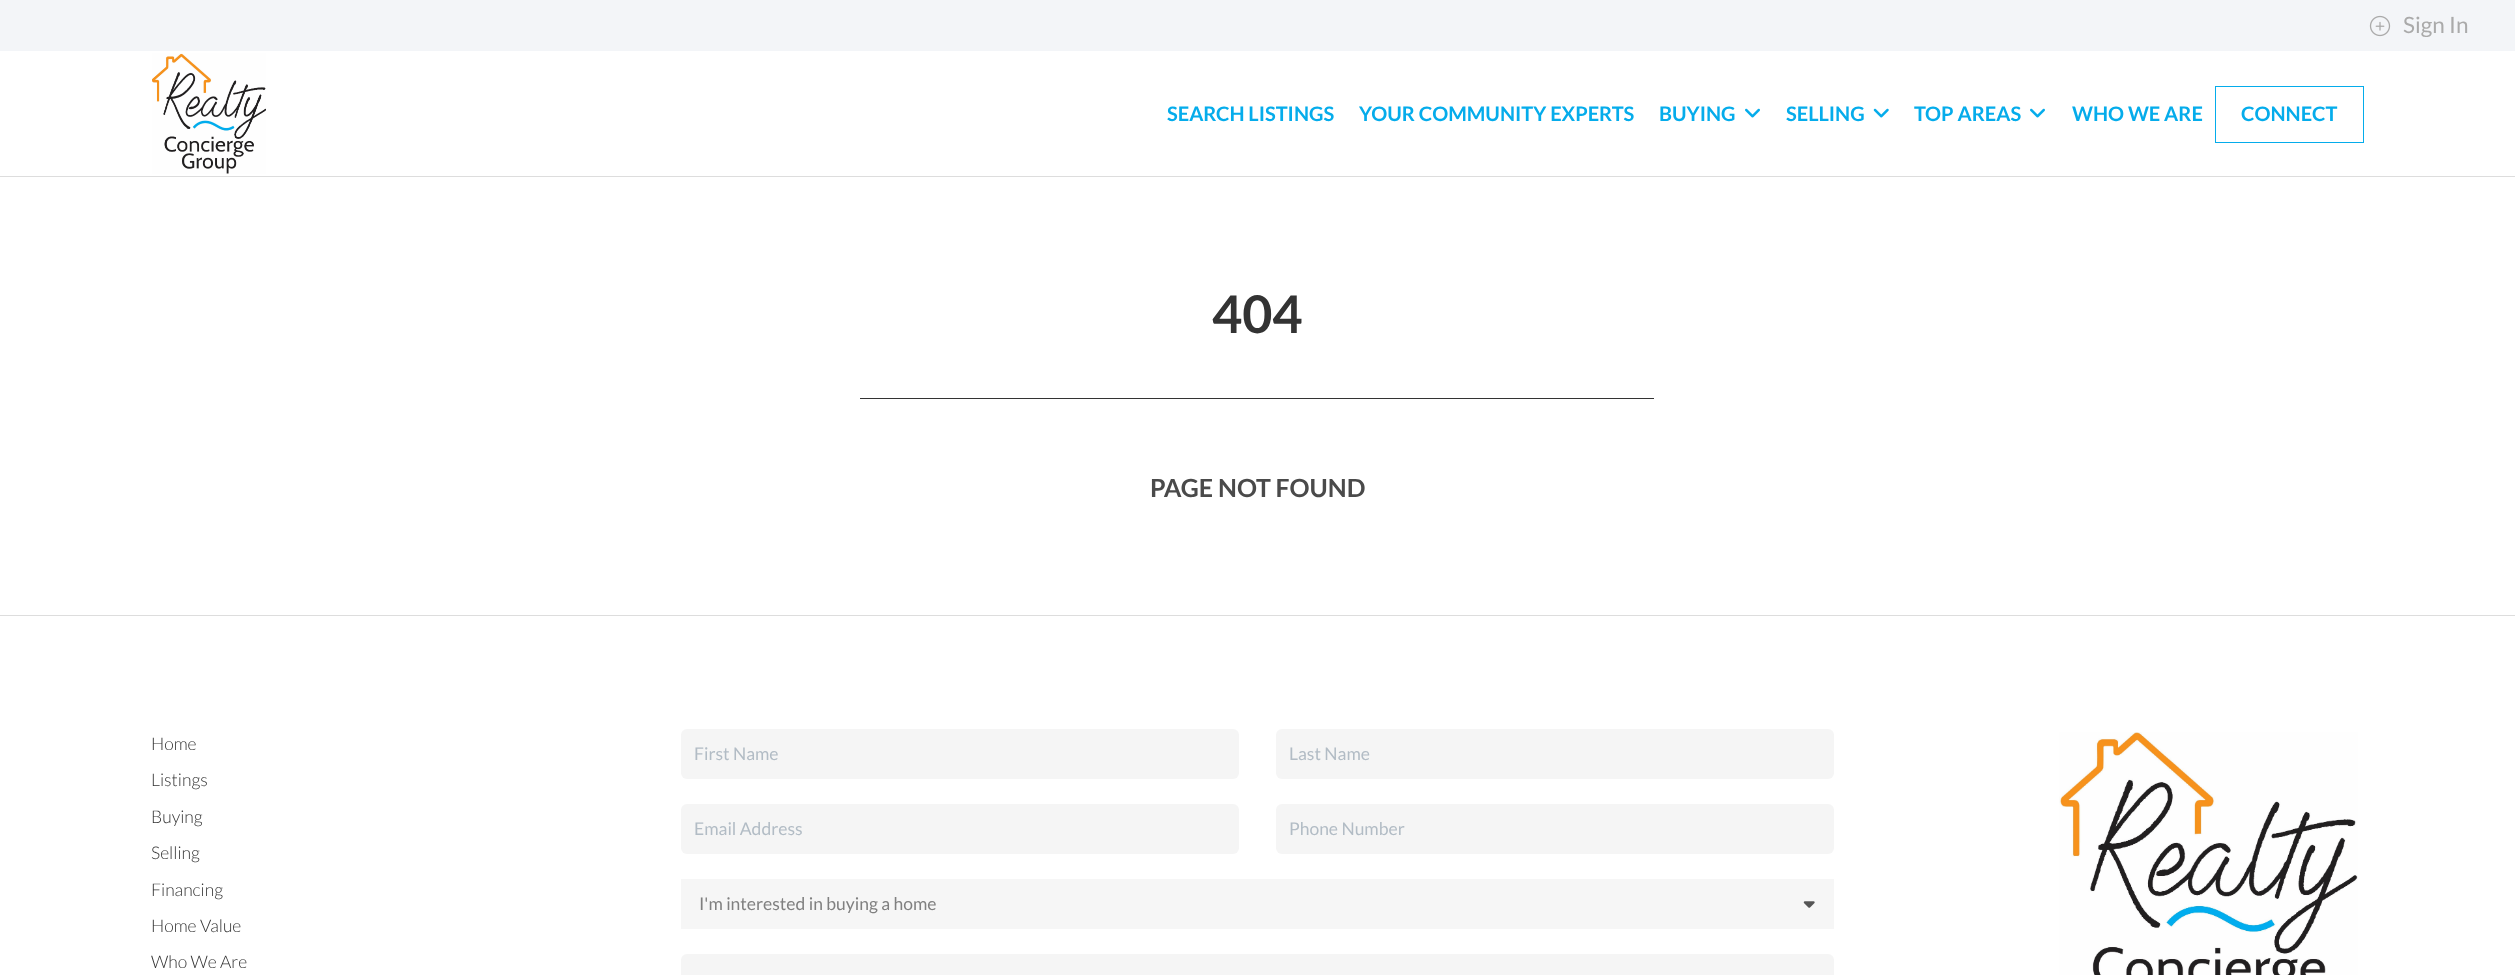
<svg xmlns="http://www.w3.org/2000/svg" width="2515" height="975">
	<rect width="100%" height="100%" fill="#FFFFFF" />
	<rect x="0" y="0" width="2515" height="51" fill="#F3F5F8" />
	<image x="2369" y="15" width="22" height="22" href="assets/img1.png" />
	<text x="2403" y="33" font-family="Lato" font-size="22.5" fill="#AAAAAA">Sign In</text>
	<rect x="0" y="176" width="2515" height="1" fill="#DDDDDD" />
	<image x="152" y="53" width="114" height="121" href="assets/img2.png" />
	<g font-family="Lato" font-size="20" font-weight="700" fill="#05ACEB">
		<text x="1167" y="121">SEARCH LISTINGS</text>
		<text x="1359" y="121">YOUR COMMUNITY EXPERTS</text>
		<text x="1659" y="121">BUYING</text>
	</g>
	<image x="1745" y="108" width="15" height="10" href="assets/img3.png" />
	<text x="1786" y="121" font-family="Lato" font-size="20" font-weight="700" fill="#05ACEB">SELLING</text>
	<image x="1873" y="108" width="16" height="10" href="assets/img4.png" />
	<text x="1914" y="121" font-family="Lato" font-size="20" font-weight="700" fill="#05ACEB">TOP AREAS</text>
	<image x="2030" y="108" width="15" height="10" href="assets/img3.png" />
	<text x="2072" y="121" font-family="Lato" font-size="20" font-weight="700" fill="#05ACEB">WHO WE ARE</text>
	<rect x="2215.5" y="86.5" width="148" height="56" fill="none" stroke="#05ACEB" />
	<text x="2241" y="121" font-family="Lato" font-size="20" font-weight="700" fill="#05ACEB">CONNECT</text>
	<text x="1212" y="333" font-family="Lato" font-size="52" font-weight="700" fill="#333333">404</text>
	<rect x="860" y="398" width="794" height="1" fill="#333333" />
	<text x="1150" y="497" font-family="Lato" font-size="25" font-weight="700" fill="#4A4A4A">PAGE NOT FOUND</text>
	<rect x="0" y="615" width="2515" height="1" fill="#DDDDDD" />
	<g font-family="Lato" font-size="17.5" font-weight="300" fill="#333333">
		<text x="151" y="750">Home</text>
		<text x="151" y="786">Listings</text>
		<text x="151" y="823">Buying</text>
		<text x="151" y="859">Selling</text>
		<text x="151" y="896">Financing</text>
		<text x="151" y="932">Home Value</text>
		<text x="151" y="968">Who We Are</text>
	</g>
	<rect x="681" y="729" width="558" height="50" rx="6" fill="#F5F5F5" />
	<text x="694" y="760" font-family="Lato" font-size="17.5" fill="#B2BCC5">First Name</text>
	<rect x="1276" y="729" width="558" height="50" rx="6" fill="#F5F5F5" />
	<text x="1289" y="760" font-family="Lato" font-size="17.5" fill="#B2BCC5">Last Name</text>
	<rect x="681" y="804" width="558" height="50" rx="6" fill="#F5F5F5" />
	<text x="694" y="835" font-family="Lato" font-size="17.5" fill="#B2BCC5">Email Address</text>
	<rect x="1276" y="804" width="558" height="50" rx="6" fill="#F5F5F5" />
	<text x="1289" y="835" font-family="Lato" font-size="17.5" fill="#B2BCC5">Phone Number</text>
	<rect x="681" y="879" width="1153" height="50" fill="#F6F6F6" />
	<text x="699" y="910" font-family="Lato" font-size="17.5" fill="#808080">I'm interested in buying a home</text>
	<image x="1803" y="901" width="12" height="7" href="assets/img5.png" />
	<rect x="681" y="954" width="1153" height="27" rx="6" fill="#F5F5F5" />
	<image x="2059" y="732" width="299" height="243" href="assets/img6.png" />
</svg>
